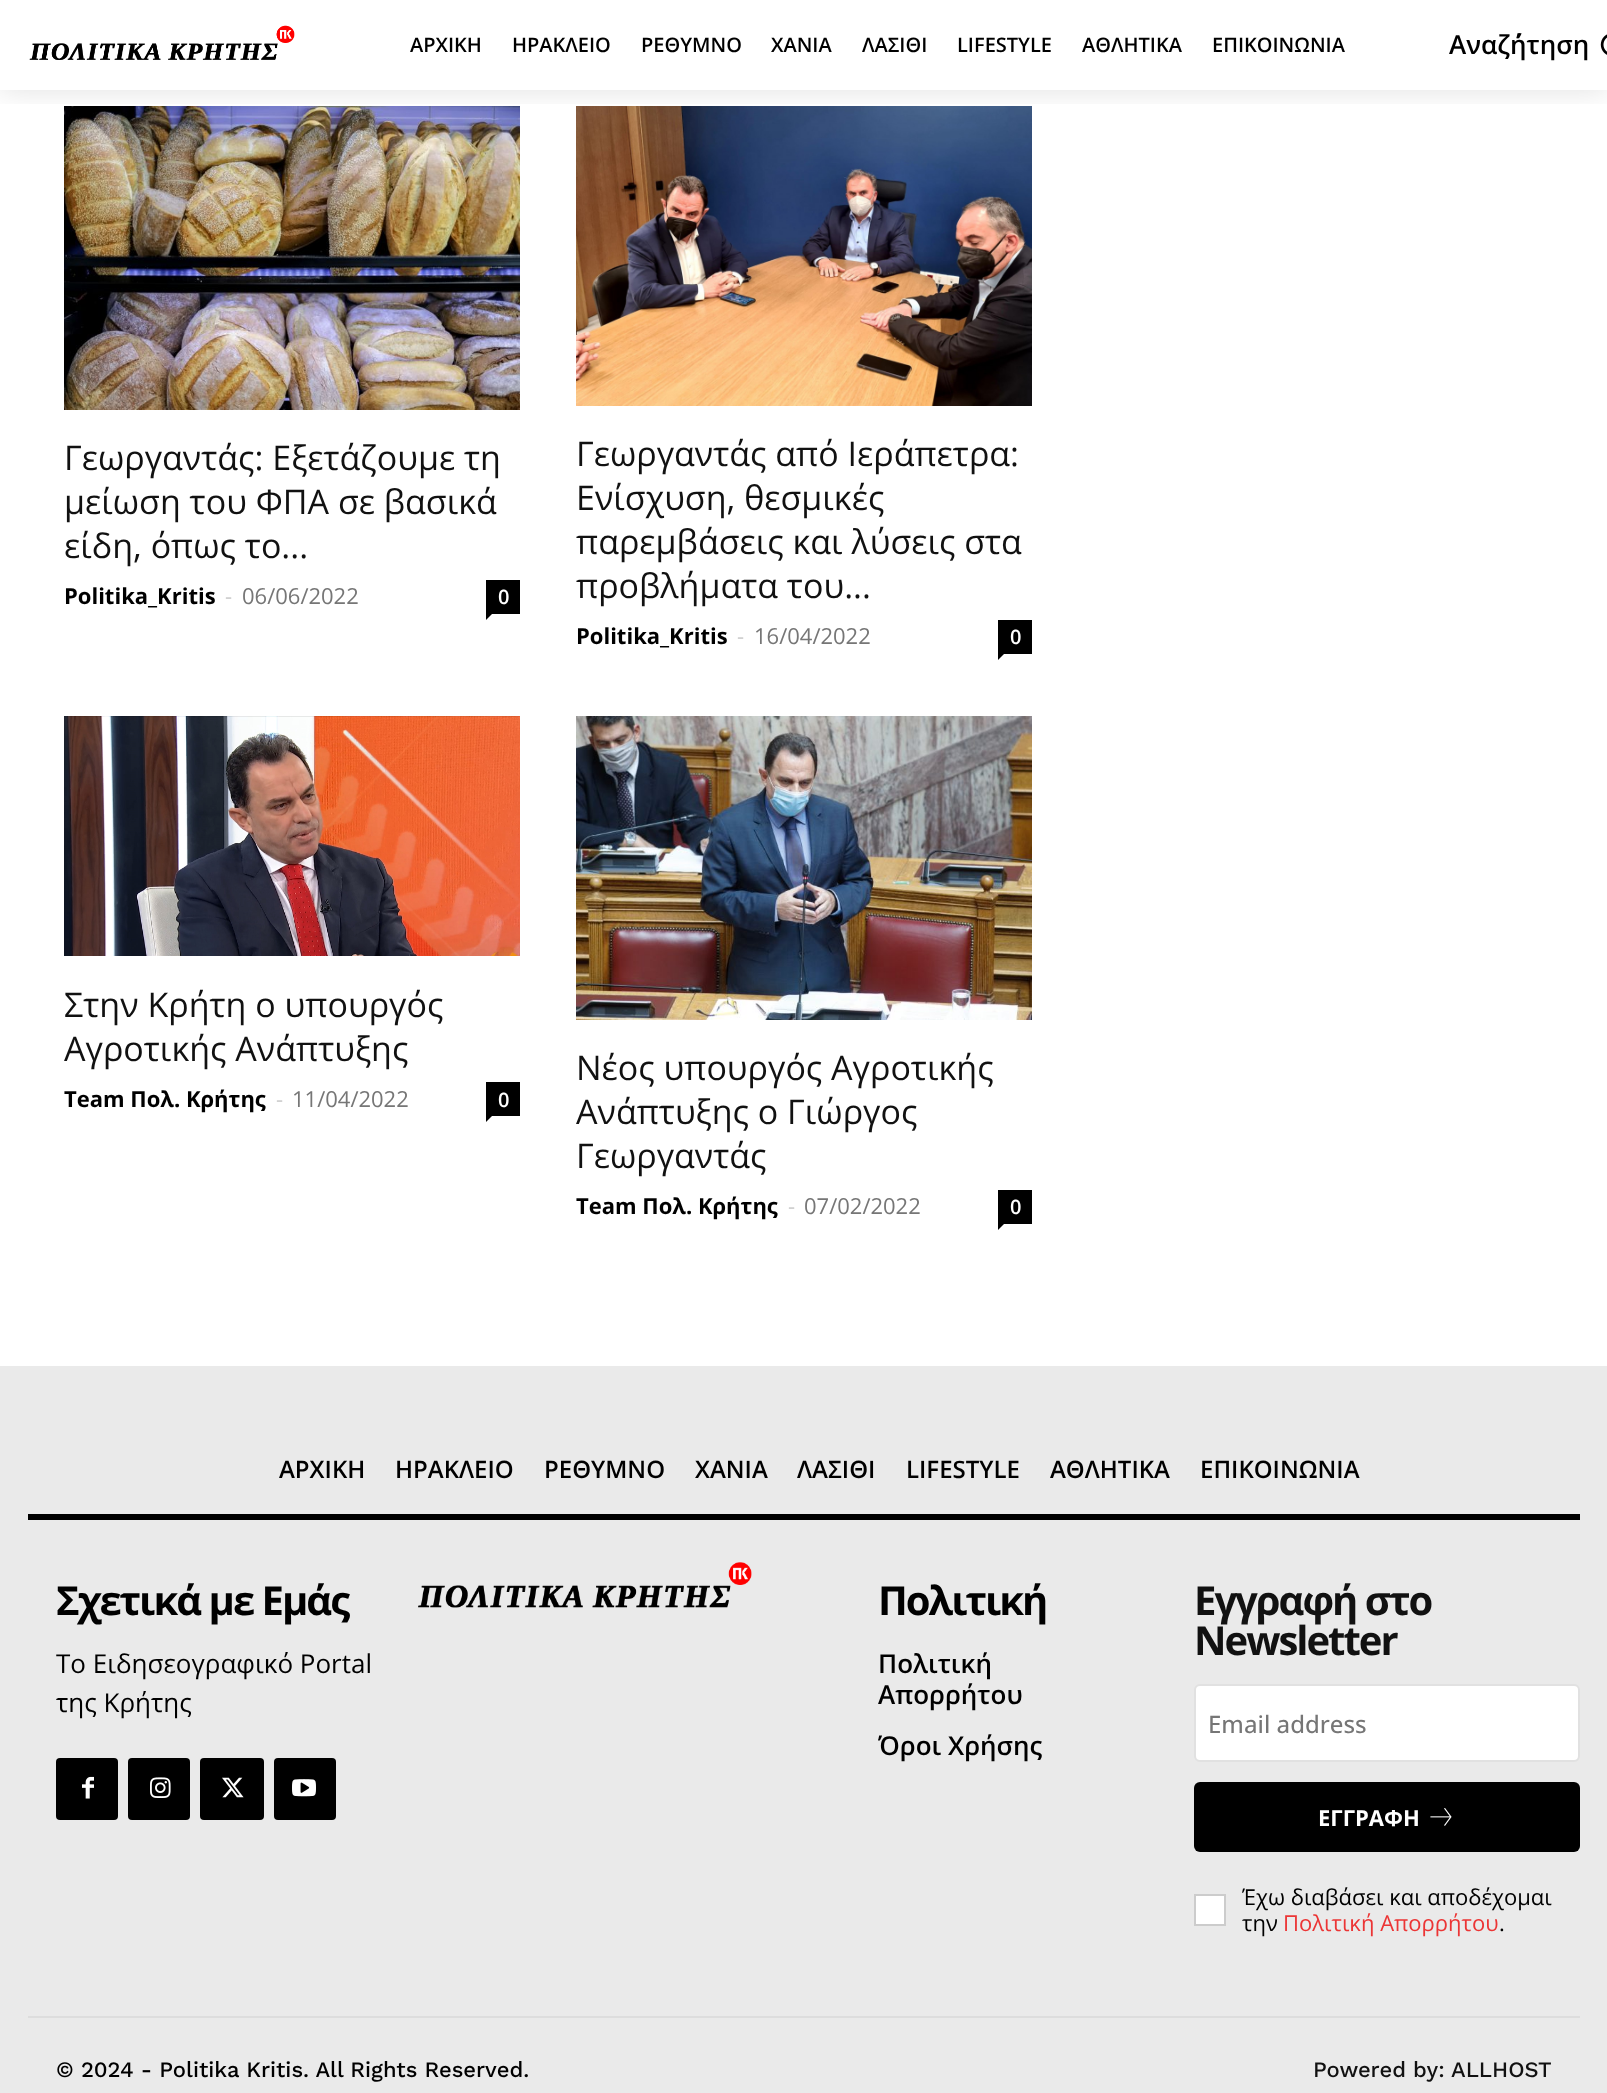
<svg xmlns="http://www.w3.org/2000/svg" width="1607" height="2093">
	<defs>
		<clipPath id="clip1"><rect x="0" y="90" width="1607" height="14" /></clipPath>
	</defs>
	<rect width="100%" height="100%" fill="#FFFFFF" />
	<image x="29" y="25" width="266" height="35" href="assets/img1.png" />
	<image x="64" y="106" width="456" height="304" href="assets/img3.png" />
	<image x="576" y="106" width="456" height="300" href="assets/img4.png" />
	<g clip-path="url(#clip1)">
		<rect x="0" y="0" width="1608" height="90" fill="#000000" fill-opacity="0.12" filter="blur(15px)" />
	</g>
	<g font-family="Open Sans" font-size="20" font-weight="600" fill="#000000">
		<text x="410" y="52">ΑΡΧΙΚΗ</text>
		<text x="512" y="52">ΗΡΑΚΛΕΙΟ</text>
		<text x="641" y="52">ΡΕΘΥΜΝΟ</text>
		<text x="771" y="52">ΧΑΝΙΑ</text>
		<text x="862" y="52">ΛΑΣΙΘΙ</text>
		<text x="957" y="52">LIFESTYLE</text>
		<text x="1082" y="52">ΑΘΛΗΤΙΚΑ</text>
		<text x="1212" y="52">ΕΠΙΚΟΙΝΩΝΙΑ</text>
	</g>
	<text x="1449" y="54" font-family="Open Sans" font-size="26" font-weight="600" fill="#000000">Αναζ΄ήτηση</text>
	<image x="1600" y="34" width="7" height="21" href="assets/img2.png" />
	<g font-family="Open Sans" font-size="34" fill="#111111">
		<text x="64" y="470">Γεωργαντάς: Εξετάζουμε τη</text>
		<text x="64" y="514">μείωση του ΦΠΑ σε βασικά</text>
		<text x="64" y="558">είδη, όπως το...</text>
	</g>
	<text x="64" y="604" font-family="Open Sans" font-size="22" font-weight="700" fill="#000000">Politika_Kritis</text>
	<text x="225" y="604" font-family="Open Sans" font-size="22" fill="#CCCCCC">-</text>
	<text x="242" y="604" font-family="Open Sans" font-size="22" fill="#767676">06/06/2022</text>
	<rect x="486" y="580" width="34" height="34" fill="#000000" />
	<text x="498" y="604" font-family="Open Sans" font-size="20" font-weight="600" fill="#FFFFFF">0</text>
	<path d="M486 614H492L486 620Z" fill="#000000" />
	<g font-family="Open Sans" font-size="34" fill="#111111">
		<text x="576" y="466">Γεωργαντάς από Ιεράπετρα:</text>
		<text x="576" y="510">Ενίσχυση, θεσμικές</text>
		<text x="576" y="554">παρεμβάσεις και λύσεις στα</text>
		<text x="576" y="598">προβλήματα του...</text>
	</g>
	<text x="576" y="644" font-family="Open Sans" font-size="22" font-weight="700" fill="#000000">Politika_Kritis</text>
	<text x="737" y="644" font-family="Open Sans" font-size="22" fill="#CCCCCC">-</text>
	<text x="754" y="644" font-family="Open Sans" font-size="22" fill="#767676">16/04/2022</text>
	<rect x="998" y="620" width="34" height="34" fill="#000000" />
	<text x="1010" y="644" font-family="Open Sans" font-size="20" font-weight="600" fill="#FFFFFF">0</text>
	<path d="M998 654H1004L998 660Z" fill="#000000" />
	<image x="64" y="716" width="456" height="240" href="assets/img5.png" />
	<g font-family="Open Sans" font-size="34" fill="#111111">
		<text x="64" y="1017">Στην Κρήτη ο υπουργός</text>
		<text x="64" y="1061">Αγροτικής Ανάπτυξης</text>
	</g>
	<text x="64" y="1107" font-family="Open Sans" font-size="22" font-weight="700" fill="#000000">Team Πολ. Κρήτης</text>
	<text x="276" y="1107" font-family="Open Sans" font-size="22" fill="#CCCCCC">-</text>
	<text x="292" y="1107" font-family="Open Sans" font-size="22" fill="#767676">11/04/2022</text>
	<rect x="486" y="1082" width="34" height="34" fill="#000000" />
	<text x="498" y="1107" font-family="Open Sans" font-size="20" font-weight="600" fill="#FFFFFF">0</text>
	<path d="M486 1116H492L486 1122Z" fill="#000000" />
	<image x="576" y="716" width="456" height="304" href="assets/img6.png" />
	<g font-family="Open Sans" font-size="34" fill="#111111">
		<text x="576" y="1080">Νέος υπουργός Αγροτικής</text>
		<text x="576" y="1124">Ανάπτυξης ο Γιώργος</text>
		<text x="576" y="1168">Γεωργαντάς</text>
	</g>
	<text x="576" y="1214" font-family="Open Sans" font-size="22" font-weight="700" fill="#000000">Team Πολ. Κρήτης</text>
	<text x="788" y="1214" font-family="Open Sans" font-size="22" fill="#CCCCCC">-</text>
	<text x="804" y="1214" font-family="Open Sans" font-size="22" fill="#767676">07/02/2022</text>
	<rect x="998" y="1190" width="34" height="34" fill="#000000" />
	<text x="1010" y="1214" font-family="Open Sans" font-size="20" font-weight="600" fill="#FFFFFF">0</text>
	<path d="M998 1224H1004L998 1230Z" fill="#000000" />
	<rect x="0" y="1366" width="1607" height="727" fill="#EAEAEA" />
	<rect x="28" y="1514" width="1552" height="6" fill="#000000" />
	<g font-family="Open Sans" font-size="24" font-weight="600" fill="#000000">
		<text x="279" y="1478">ΑΡΧΙΚΗ</text>
		<text x="395" y="1478">ΗΡΑΚΛΕΙΟ</text>
		<text x="544" y="1478">ΡΕΘΥΜΝΟ</text>
		<text x="695" y="1478">ΧΑΝΙΑ</text>
		<text x="797" y="1478">ΛΑΣΙΘΙ</text>
		<text x="906" y="1478">LIFESTYLE</text>
		<text x="1050" y="1478">ΑΘΛΗΤΙΚΑ</text>
		<text x="1200" y="1478">ΕΠΙΚΟΙΝΩΝΙΑ</text>
	</g>
	<text x="56" y="1615" font-family="Open Sans" font-size="40" font-weight="700" letter-spacing="-2" fill="#000000">Σχετικά με Εμάς</text>
	<g font-family="Open Sans" font-size="26" fill="#000000">
		<text x="56" y="1673">Το Ειδησεογραφικό Portal</text>
		<text x="56" y="1712">της Κρήτης</text>
	</g>
	<rect x="56" y="1758" width="62" height="62" rx="4" fill="#000000" />
	<image x="82" y="1776" width="12" height="23" href="assets/img7.png" />
	<rect x="128" y="1758" width="62" height="62" rx="4" fill="#000000" />
	<image x="150" y="1777" width="21" height="21" href="assets/img8.png" />
	<rect x="200" y="1758" width="64" height="62" rx="4" fill="#000000" />
	<image x="222" y="1777" width="22" height="21" href="assets/img9.png" />
	<rect x="274" y="1758" width="62" height="62" rx="4" fill="#000000" />
	<image x="292" y="1779" width="24" height="18" href="assets/img10.png" />
	<image x="418" y="1562" width="334" height="46" href="assets/img11.png" />
	<text x="878" y="1615" font-family="Open Sans" font-size="40" font-weight="700" letter-spacing="-2" fill="#000000">Πολιτική</text>
	<g font-family="Open Sans" font-size="26" font-weight="600" fill="#000000">
		<text x="878" y="1673">Πολιτική</text>
		<text x="878" y="1704">Απορρήτου</text>
		<text x="878" y="1755">Όροι Χρήσης</text>
	</g>
	<g font-family="Open Sans" font-size="40" font-weight="700" letter-spacing="-2" fill="#111111">
		<text x="1194" y="1615">Εγγραφή στο</text>
		<text x="1194" y="1655">Newsletter</text>
	</g>
	<rect x="1195" y="1685" width="384" height="76" rx="5" fill="#FFFFFF" stroke="#E1E1E1" stroke-width="2" />
	<text x="1208" y="1733" font-family="Open Sans" font-size="24" font-weight="500" fill="#767676">Email address</text>
	<rect x="1194" y="1782" width="386" height="70" rx="6" fill="#000000" />
	<text x="1318" y="1826" font-family="Open Sans" font-size="22" font-weight="700" fill="#FFFFFF">ΕΓΓΡΑΦΗ</text>
	<image x="1430" y="1808" width="22" height="18" href="assets/img12.png" />
	<rect x="1195" y="1895" width="30" height="30" fill="#FFFFFF" stroke="#CCCCCC" stroke-width="2" />
	<g font-family="Open Sans" font-size="22" fill="#000000">
		<text x="1242" y="1905">Έχω διαβάσει και αποδέχομαι</text>
		<text x="1242" y="1931">την</text>
	</g>
	<text x="1283" y="1931" font-family="Open Sans" font-size="22" fill="#EC3535">Πολιτική Απορρήτου</text>
	<text x="1499" y="1931" font-family="Open Sans" font-size="22" fill="#000000">.</text>
	<rect x="28" y="2016" width="1552" height="2" fill="#DDDDDD" />
	<text x="56" y="2077" font-family="Work Sans" font-size="22" font-weight="500" fill="#000000">© 2024 - Politika Kritis. All Rights Reserved.</text>
	<g font-family="Work Sans" font-size="22" font-weight="500" fill="#111111">
		<text x="1313" y="2077">Powered by:</text>
		<text x="1451" y="2077">ALLHOST</text>
	</g>
</svg>
